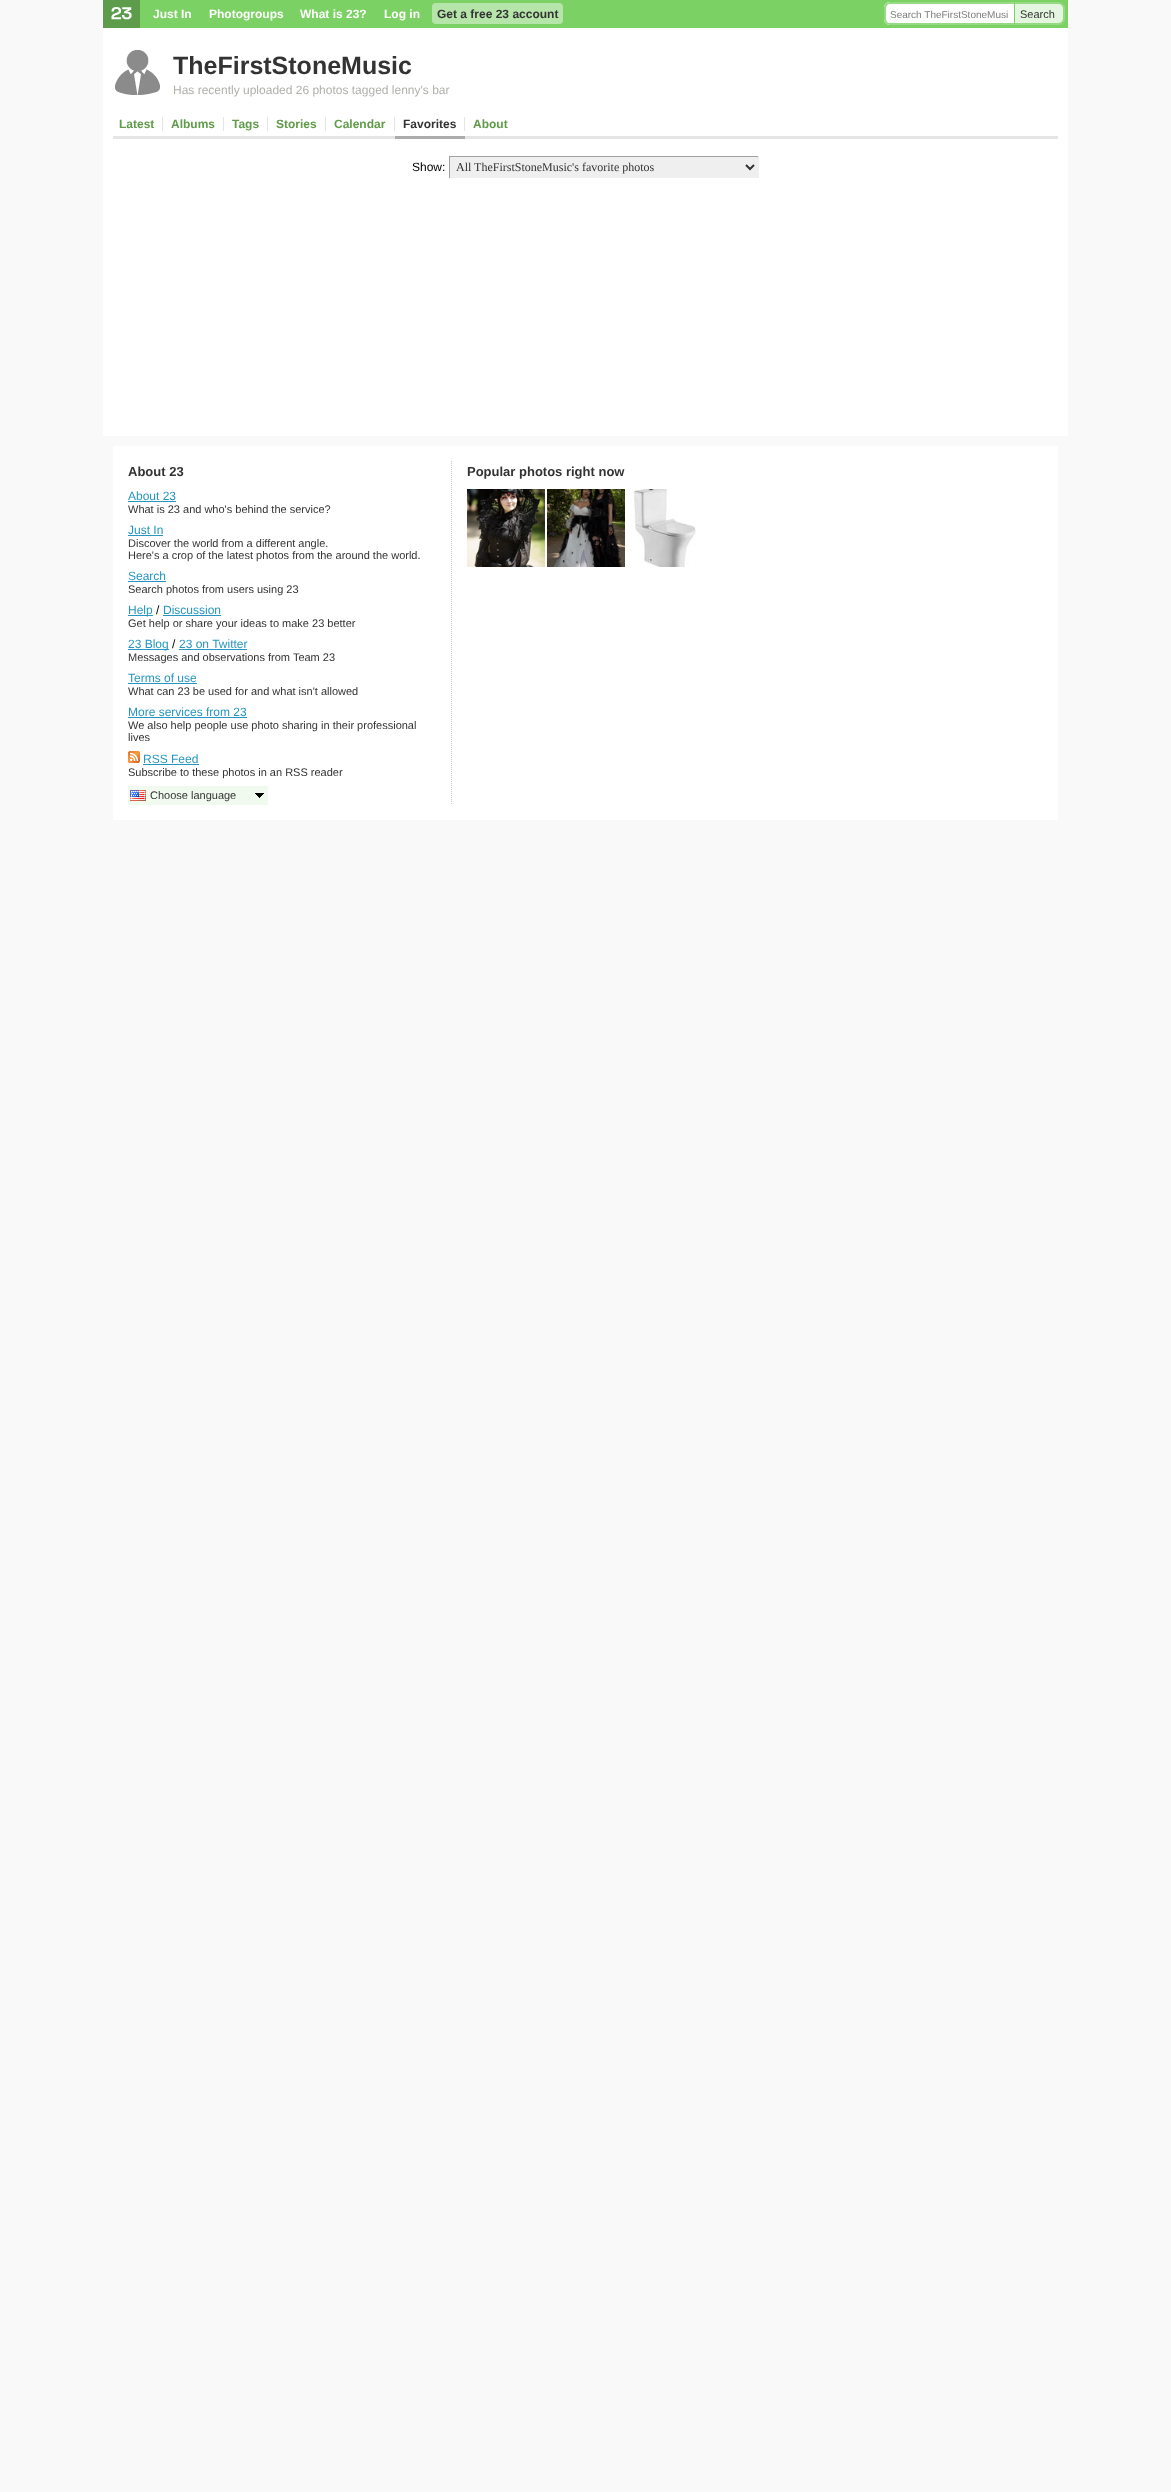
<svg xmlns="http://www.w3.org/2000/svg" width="1171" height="2492">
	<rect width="100%" height="100%" fill="#F9F9F9" />
	<rect x="103" y="28" width="965" height="408" fill="#FFFFFF" />
	<rect x="140" y="0" width="928" height="28" fill="#7CD164" />
	<rect x="103" y="0" width="37" height="28" fill="#5D9C4B" />
	<image x="111" y="7" width="21" height="13" href="assets/img1.png" />
	<g font-family="Liberation Sans" font-size="12" font-weight="700" fill="#FFFFFF">
		<text x="153" y="18">Just In</text>
		<text x="209" y="18">Photogroups</text>
		<text x="300" y="18">What is 23?</text>
		<text x="384" y="18">Log in</text>
	</g>
	<rect x="432" y="3" width="131" height="21" rx="4" fill="#B6E5A9" />
	<text x="437" y="18" font-family="Liberation Sans" font-size="12" font-weight="700" fill="#333333">Get a free 23 account</text>
	<path d="M890 2H1014V25H890C886.5 25 884 22.5 884 19V8C884 4.5 886.5 2 890 2Z" fill="#FFFFFF" />
	<path d="M890 2H1014V25H890C887 25 884 22 884 19V8C884 5 887 2 890 2ZM890 4H1014V23H889C885 22 886 17 886 14C886 10 885 4 890 4Z" fill="#96DA83" fill-rule="evenodd" />
	<rect x="888" y="22" width="1" height="1" fill="#FFFFFF" />
	<text x="890" y="18" font-family="Liberation Sans" font-size="10" fill="#7C7C7C">Search TheFirstStoneMusi</text>
	<path d="M1015 4H1059C1061 4 1063 6 1063 8V19C1063 21 1061 23 1059 23H1015Z" fill="#E4F5E0" />
	<path d="M1014 2L1015 4H1059C1060 4 1061 4 1062 5L1063 4C1062 3 1060 2 1059 2Z" fill="#96DA83" />
	<path d="M1065 19V8C1065 6.5 1064 5 1063 4L1062 5C1064 7.5 1063 11 1063 13.5C1063 16 1064 19.5 1062 22L1063 23C1064 22 1065 20.5 1065 19Z" fill="#96DA83" />
	<path d="M1059 25C1060 25 1062 24 1063 23L1062 22C1061 22 1060 23 1059 23H1015L1014 25Z" fill="#96DA83" />
	<path d="M1014 2V25L1015 23V4Z" fill="#7CD164" />
	<text x="1020" y="18" font-family="Liberation Sans" font-size="11" fill="#333333">Search</text>
	<image x="115" y="50" width="45" height="45" href="assets/img2.png" />
	<text x="173" y="74" font-family="Liberation Sans" font-size="25" font-weight="700" fill="#333333">TheFirstStoneMusic</text>
	<text x="173" y="94" font-family="Liberation Sans" font-size="12" fill="#AFB1AA">Has recently uploaded 26 photos tagged lenny's bar</text>
	<rect x="162" y="117" width="1" height="14" fill="#E5E5E5" />
	<text x="119" y="128" font-family="Liberation Sans" font-size="12" font-weight="700" fill="#5F9B4A">Latest</text>
	<rect x="223" y="117" width="1" height="14" fill="#E5E5E5" />
	<text x="171" y="128" font-family="Liberation Sans" font-size="12" font-weight="700" fill="#5F9B4A">Albums</text>
	<rect x="267" y="117" width="1" height="14" fill="#E5E5E5" />
	<text x="232" y="128" font-family="Liberation Sans" font-size="12" font-weight="700" fill="#5F9B4A">Tags</text>
	<rect x="325" y="117" width="1" height="14" fill="#E5E5E5" />
	<text x="276" y="128" font-family="Liberation Sans" font-size="12" font-weight="700" fill="#5F9B4A">Stories</text>
	<rect x="394" y="117" width="1" height="14" fill="#E5E5E5" />
	<text x="334" y="128" font-family="Liberation Sans" font-size="12" font-weight="700" fill="#5F9B4A">Calendar</text>
	<rect x="113" y="136" width="945" height="3" fill="#E5E5E5" />
	<rect x="395" y="136" width="70" height="3" fill="#ABABAB" />
	<rect x="464" y="117" width="1" height="14" fill="#E5E5E5" />
	<text x="403" y="128" font-family="Liberation Sans" font-size="12" font-weight="700" fill="#333333">Favorites</text>
	<text x="473" y="128" font-family="Liberation Sans" font-size="12" font-weight="700" fill="#5F9B4A">About</text>
	<text x="412" y="171" font-family="Liberation Sans" font-size="12" fill="#000000">Show:</text>
	<rect x="450" y="157" width="308" height="21" fill="#EFEFEF" />
	<rect x="449" y="156" width="310" height="1" fill="#A0A0A0" />
	<rect x="758" y="156" width="1" height="22" fill="#F0F0F0" />
	<rect x="449" y="156" width="1" height="22" fill="#A0A0A0" />
	<path d="M746 165L750 169L754 165" fill="none" stroke="#333333" stroke-width="2" />
	<text x="456" y="171" font-family="Liberation Serif" font-size="12" fill="#333333">All TheFirstStoneMusic's favorite photos</text>
	<rect x="113" y="446" width="945" height="374" fill="#FFFFFF" />
	<text x="128" y="476" font-family="Liberation Sans" font-size="13" font-weight="700" fill="#333333">About 23</text>
	<text x="128" y="500" font-family="Liberation Sans" font-size="12" fill="#2797C1">About 23</text>
	<rect x="128" y="501" width="48" height="1" fill="#2797C1" />
	<text x="128" y="513" font-family="Liberation Sans" font-size="11" fill="#333333">What is 23 and who's behind the service?</text>
	<text x="128" y="534" font-family="Liberation Sans" font-size="12" fill="#2797C1">Just In</text>
	<rect x="128" y="535" width="35" height="1" fill="#2797C1" />
	<g font-family="Liberation Sans" font-size="11" fill="#333333">
		<text x="128" y="547">Discover the world from a different angle.</text>
		<text x="128" y="559">Here's a crop of the latest photos from the around the world.</text>
	</g>
	<text x="128" y="580" font-family="Liberation Sans" font-size="12" fill="#2797C1">Search</text>
	<rect x="128" y="581" width="38" height="1" fill="#2797C1" />
	<text x="128" y="593" font-family="Liberation Sans" font-size="11" fill="#333333">Search photos from users using 23</text>
	<rect x="128" y="615" width="25" height="1" fill="#2797C1" />
	<text x="128" y="614" font-family="Liberation Sans" font-size="12" fill="#2797C1">Help</text>
	<text x="156" y="614" font-family="Liberation Sans" font-size="12" fill="#000000">/</text>
	<text x="163" y="614" font-family="Liberation Sans" font-size="12" fill="#2797C1">Discussion</text>
	<rect x="163" y="615" width="58" height="1" fill="#2797C1" />
	<text x="128" y="627" font-family="Liberation Sans" font-size="11" fill="#333333">Get help or share your ideas to make 23 better</text>
	<rect x="128" y="649" width="41" height="1" fill="#2797C1" />
	<text x="128" y="648" font-family="Liberation Sans" font-size="12" fill="#2797C1">23 Blog</text>
	<text x="172" y="648" font-family="Liberation Sans" font-size="12" fill="#000000">/</text>
	<text x="179" y="648" font-family="Liberation Sans" font-size="12" fill="#2797C1">23 on Twitter</text>
	<rect x="179" y="649" width="68" height="1" fill="#2797C1" />
	<text x="128" y="661" font-family="Liberation Sans" font-size="11" fill="#333333">Messages and observations from Team 23</text>
	<text x="128" y="682" font-family="Liberation Sans" font-size="12" fill="#2797C1">Terms of use</text>
	<rect x="128" y="683" width="69" height="1" fill="#2797C1" />
	<text x="128" y="695" font-family="Liberation Sans" font-size="11" fill="#333333">What can 23 be used for and what isn't allowed</text>
	<text x="128" y="716" font-family="Liberation Sans" font-size="12" fill="#2797C1">More services from 23</text>
	<rect x="128" y="717" width="119" height="1" fill="#2797C1" />
	<g font-family="Liberation Sans" font-size="11" fill="#333333">
		<text x="128" y="729">We also help people use photo sharing in their professional</text>
		<text x="128" y="741">lives</text>
	</g>
	<image x="128" y="751" width="12" height="12" href="assets/img3.png" />
	<text x="143" y="763" font-family="Liberation Sans" font-size="12" fill="#2797C1">RSS Feed</text>
	<rect x="143" y="764" width="56" height="1" fill="#2797C1" />
	<text x="128" y="776" font-family="Liberation Sans" font-size="11" fill="#333333">Subscribe to these photos in an RSS reader</text>
	<rect x="128" y="786" width="140" height="19" fill="#F1FAEF" />
	<image x="255" y="793" width="9" height="5" href="assets/img4.png" />
	<image x="130" y="790" width="16" height="11" href="assets/img5.png" />
	<text x="150" y="799" font-family="Liberation Sans" font-size="11" fill="#333333">Choose language</text>
	<path d="M451.5 461V805" fill="none" stroke="#CDCDCD" stroke-dasharray="1 1" />
	<text x="467" y="476" font-family="Liberation Sans" font-size="13" font-weight="700" fill="#333333">Popular photos right now</text>
	<image x="467" y="489" width="78" height="78" href="assets/img6.png" />
	<image x="547" y="489" width="78" height="78" href="assets/img7.png" />
	<image x="633" y="489" width="63" height="78" href="assets/img8.png" />
</svg>
